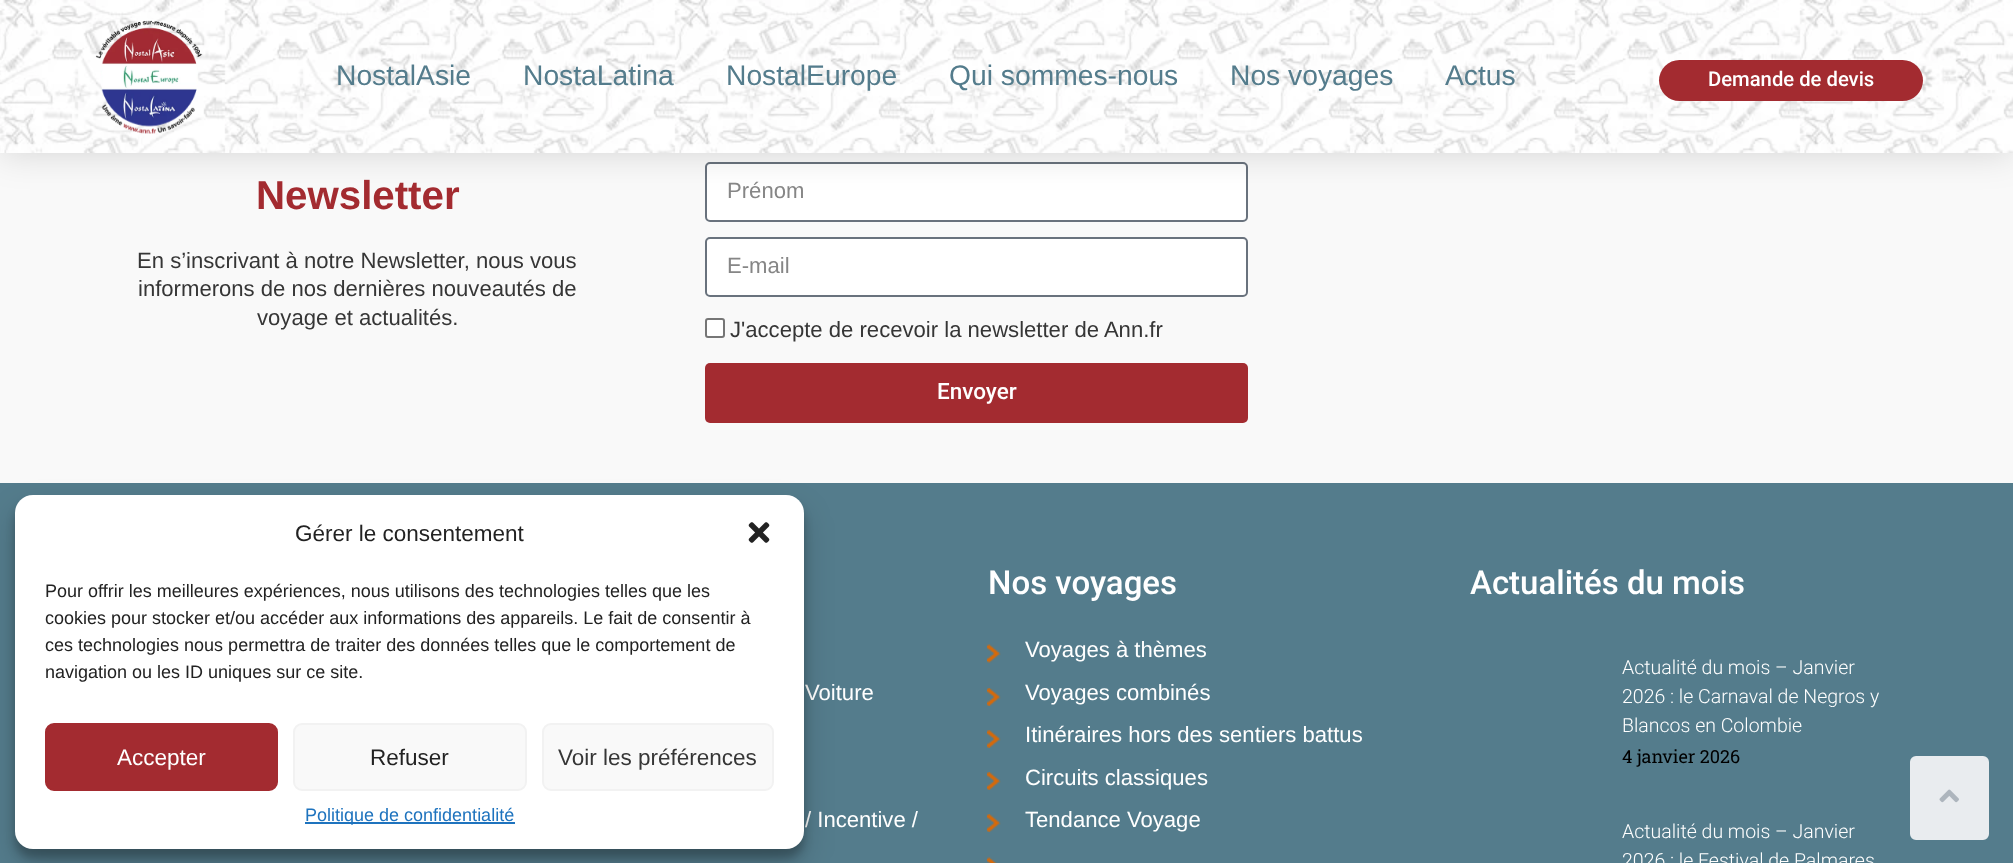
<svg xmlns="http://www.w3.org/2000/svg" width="2013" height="863">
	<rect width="100%" height="100%" fill="#F9F9F9" />
	<rect x="706" y="163" width="541" height="58" rx="4" fill="#FFFFFF" stroke="#69727D" stroke-width="2" />
	<rect x="0" y="0" width="2013" height="153" fill="#000000" fill-opacity="0.15" filter="blur(18px)" />
	<image x="0" y="0" width="2013" height="153" href="assets/img1.png" />
	<image x="95" y="20" width="108" height="114" href="assets/img2.png" />
	<g font-family="Liberation Sans" font-size="28.25" fill="#547C8C">
		<text x="336" y="85">NostalAsie</text>
		<text x="523" y="85">NostaLatina</text>
		<text x="726" y="85">NostalEurope</text>
		<text x="949" y="85">Qui sommes-nous</text>
		<text x="1230" y="85">Nos voyages</text>
		<text x="1445" y="85">Actus</text>
	</g>
	<rect x="1659" y="60" width="264" height="41" rx="20.5" fill="#A32B30" />
	<text x="1708" y="86" font-family="Roboto" font-size="20.25" font-weight="500" fill="#FFFFFF">Demande de devis</text>
	<text x="256" y="209" font-family="Liberation Sans" font-size="40.25" font-weight="700" fill="#A32B30">Newsletter</text>
	<g font-family="Liberation Sans" font-size="22.1" fill="#363636">
		<text x="137" y="268">En s’inscrivant à notre Newsletter, nous vous</text>
		<text x="138" y="296">informerons de nos dernières nouveautés de</text>
		<text x="257" y="325">voyage et actualités.</text>
	</g>
	<text x="727" y="198" font-family="Liberation Sans" font-size="22.1" fill="#868686">Prénom</text>
	<rect x="706" y="238" width="541" height="58" rx="4" fill="#FFFFFF" stroke="#69727D" stroke-width="2" />
	<text x="727" y="273" font-family="Liberation Sans" font-size="22.1" fill="#868686">E-mail</text>
	<rect x="706" y="319" width="18" height="18" rx="2" fill="#FFFFFF" stroke="#767676" stroke-width="2" />
	<text x="730" y="337" font-family="Liberation Sans" font-size="22.1" fill="#363636">J'accepte de recevoir la newsletter de Ann.fr</text>
	<rect x="705" y="363" width="543" height="60" rx="5" fill="#A32B30" />
	<text x="937" y="399" font-family="Roboto" font-size="22.5" font-weight="500" fill="#FFFFFF">Envoyer</text>
	<rect x="0" y="483" width="2013" height="380" fill="#547C8C" />
	<g font-family="Liberation Sans" font-size="22.1" fill="#FFFFFF">
		<text x="805" y="700">Voiture</text>
		<text x="805" y="827">/ Incentive /</text>
	</g>
	<text x="988" y="594" font-family="Roboto" font-size="33" font-weight="500" fill="#FFFFFF">Nos voyages</text>
	<image x="987" y="644" width="14" height="19" href="assets/img3.png" />
	<text x="1025" y="657" font-family="Liberation Sans" font-size="22.1" fill="#FFFFFF">Voyages à thèmes</text>
	<image x="987" y="688" width="14" height="18" href="assets/img4.png" />
	<text x="1025" y="700" font-family="Liberation Sans" font-size="22.1" fill="#FFFFFF">Voyages combinés</text>
	<image x="987" y="730" width="14" height="18" href="assets/img4.png" />
	<text x="1025" y="742" font-family="Liberation Sans" font-size="22.1" fill="#FFFFFF">Itinéraires hors des sentiers battus</text>
	<image x="987" y="772" width="14" height="18" href="assets/img4.png" />
	<text x="1025" y="785" font-family="Liberation Sans" font-size="22.1" fill="#FFFFFF">Circuits classiques</text>
	<image x="987" y="814" width="14" height="18" href="assets/img4.png" />
	<text x="1025" y="827" font-family="Liberation Sans" font-size="22.1" fill="#FFFFFF">Tendance Voyage</text>
	<image x="987" y="857" width="10" height="6" href="assets/img5.png" />
	<text x="1470" y="594" font-family="Roboto" font-size="33" font-weight="500" fill="#FFFFFF">Actualités du mois</text>
	<g font-family="Roboto" font-size="19.5" font-weight="300" fill="#FFFFFF">
		<text x="1622" y="674">Actualité du mois – Janvier</text>
		<text x="1622" y="703">2026 : le Carnaval de Negros y</text>
		<text x="1622" y="732">Blancos en Colombie</text>
	</g>
	<text x="1622" y="763" font-family="Roboto Slab" font-size="18" fill="#000000">4 janvier 2026</text>
	<g font-family="Roboto" font-size="19.5" font-weight="300" fill="#FFFFFF">
		<text x="1622" y="838">Actualité du mois – Janvier</text>
		<text x="1622" y="867">2026 : le Festival de Palmares</text>
	</g>
	<rect x="1911" y="757" width="77" height="82" rx="5" fill="#E9ECEF" stroke="#E9ECEF" stroke-width="2" />
	<image x="1939" y="789" width="20" height="14" href="assets/img6.png" />
	<rect x="15" y="504" width="789" height="354" rx="18" fill="#000000" fill-opacity="0.23" filter="blur(4.5px)" />
	<rect x="15" y="510" width="789" height="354" rx="18" fill="#000000" fill-opacity="0.19" filter="blur(15px)" />
	<rect x="15" y="495" width="789" height="354" rx="18" fill="#FFFFFF" />
	<text x="295" y="541" font-family="Liberation Sans" font-size="22.5" fill="#222222">Gérer le consentement</text>
	<image x="748" y="522" width="22" height="21" href="assets/img7.png" />
	<g font-family="Liberation Sans" font-size="18" fill="#222222">
		<text x="45" y="597">Pour offrir les meilleures expériences, nous utilisons des technologies telles que les</text>
		<text x="45" y="624">cookies pour stocker et/ou accéder aux informations des appareils. Le fait de consentir à</text>
		<text x="45" y="651">ces technologies nous permettra de traiter des données telles que le comportement de</text>
		<text x="45" y="678">navigation ou les ID uniques sur ce site.</text>
	</g>
	<rect x="46" y="724" width="231" height="66" rx="8" fill="#A32B30" stroke="#A32B30" stroke-width="2" />
	<text x="117" y="765" font-family="Liberation Sans" font-size="22.5" fill="#FFFFFF">Accepter</text>
	<rect x="294" y="724" width="232" height="66" rx="8" fill="#F9F9F9" stroke="#F2F2F2" stroke-width="2" />
	<text x="370" y="765" font-family="Liberation Sans" font-size="22.5" fill="#222222">Refuser</text>
	<rect x="543" y="724" width="230" height="66" rx="8" fill="#F9F9F9" stroke="#F2F2F2" stroke-width="2" />
	<text x="558" y="765" font-family="Liberation Sans" font-size="22.5" fill="#363636">Voir les préférences</text>
	<rect x="305" y="822" width="210" height="2" fill="#1E73BE" />
	<text x="305" y="821" font-family="Liberation Sans" font-size="18" fill="#1E73BE">Politique de confidentialité</text>
</svg>
